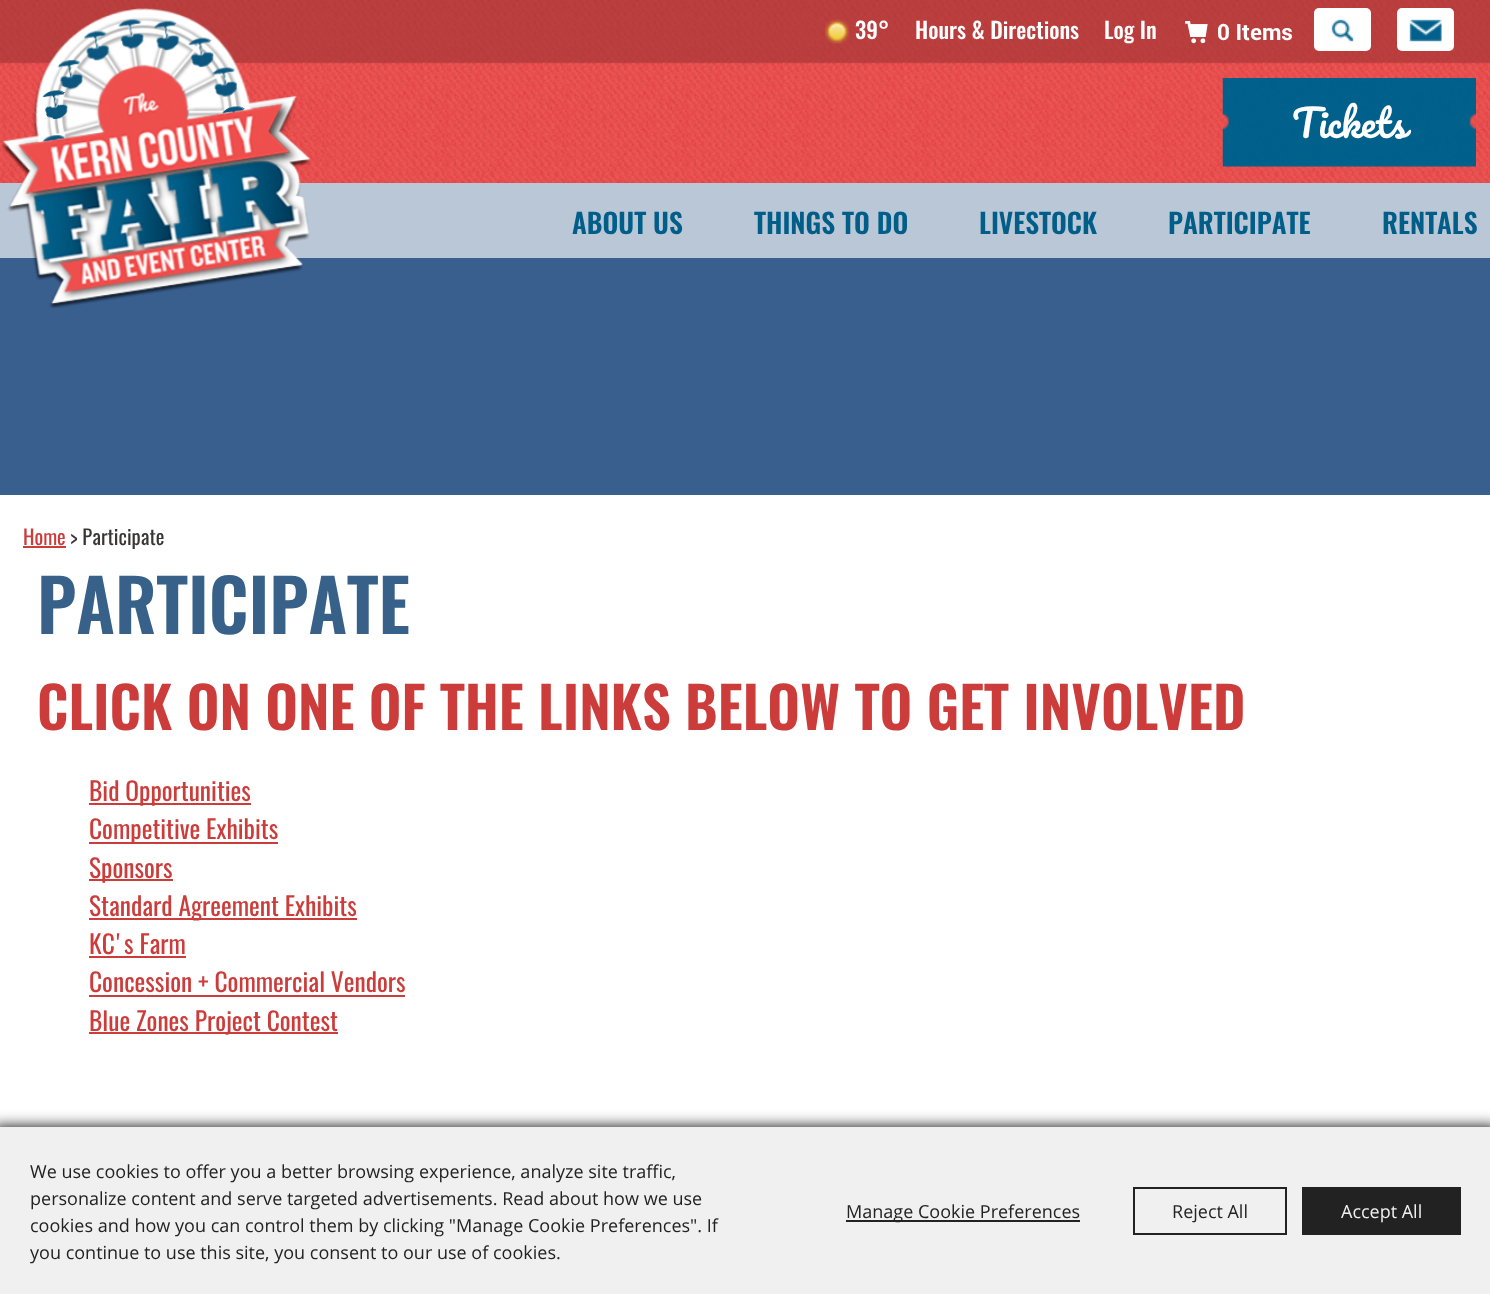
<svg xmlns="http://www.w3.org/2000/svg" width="1490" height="1294">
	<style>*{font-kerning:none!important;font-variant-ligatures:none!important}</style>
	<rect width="100%" height="100%" fill="#395F8E" />
	<image x="0" y="0" width="1490" height="183" href="assets/img1.png" />
	<rect x="0" y="183" width="1490" height="75" fill="#BAC7D7" />
	<image x="1" y="8" width="310" height="300" href="assets/img2.png" />
	<image x="47" y="17" width="195" height="125" href="assets/img3.png" />
	<image x="84" y="30" width="26" height="31" href="assets/img4.png" />
	<image x="118" y="19" width="26" height="30" href="assets/img5.png" />
	<image x="154" y="20" width="26" height="31" href="assets/img6.png" />
	<image x="212" y="67" width="25" height="30" href="assets/img9.png" />
	<image x="188" y="37" width="26" height="31" href="assets/img7.png" />
	<image x="57" y="59" width="26" height="31" href="assets/img8.png" />
	<image x="42" y="90" width="26" height="29" href="assets/img10.png" />
	<image x="222" y="106" width="23" height="8" href="assets/img11.png" />
	<image x="42" y="135" width="24" height="8" href="assets/img12.png" />
	<image x="3" y="64" width="308" height="244" href="assets/img13.png" />
	<image x="825" y="19" width="24" height="25" href="assets/img14.png" />
	<g font-family="Oswald" font-size="22.5" font-weight="500" fill="#FFFFFF">
		<text x="855" y="39">39°</text>
		<text x="915" y="39">Hours &amp; Directions</text>
		<text x="1104" y="39">Log In</text>
	</g>
	<image x="1185" y="21" width="23" height="23" href="assets/img15.png" />
	<text x="1217" y="40" font-family="Roboto" font-size="22.5" font-weight="700" fill="#FFFFFF">0 Items</text>
	<rect x="1314" y="8" width="57" height="43" rx="5" fill="#FFFFFF" />
	<image x="1331" y="19" width="23" height="23" href="assets/img16.png" />
	<rect x="1397" y="8" width="57" height="43" rx="5" fill="#FFFFFF" />
	<image x="1409" y="19" width="33" height="23" href="assets/img17.png" />
	<image x="1222" y="78" width="254" height="89" href="assets/img18.png" />
	<text x="1292" y="138" font-family="Pacifico" font-size="37.5" fill="#FFFFFF">Tickets</text>
	<g font-family="Oswald" font-size="27.5" font-weight="600" fill="#005E88">
		<text x="572" y="234">ABOUT US</text>
		<text x="754" y="234">THINGS TO DO</text>
		<text x="979" y="234">LIVESTOCK</text>
		<text x="1168" y="234">PARTICIPATE</text>
		<text x="1382" y="234">RENTALS</text>
	</g>
	<rect x="0" y="495" width="1490" height="632" fill="#FFFFFF" />
	<text x="23" y="545" font-family="Oswald" font-size="20.5" fill="#CB3C3A">Home</text>
	<rect x="23" y="546" width="43" height="2" fill="#CB3C3A" />
	<text x="70" y="545" font-family="Oswald" font-size="20.5" fill="#373635">&gt; Participate</text>
	<text x="37" y="634" font-family="Oswald" font-size="72" font-weight="600" fill="#376189">PARTICIPATE</text>
	<text x="37" y="730" font-family="Oswald" font-size="57" font-weight="600" fill="#CB3C3A">CLICK ON ONE OF THE LINKS BELOW TO GET INVOLVED</text>
	<rect x="89" y="803" width="162" height="2" fill="#CB3C3A" />
	<text x="89" y="801" font-family="Oswald" font-size="25.5" fill="#CB3C3A">Bid Opportunities</text>
	<rect x="89" y="842" width="189" height="2" fill="#CB3C3A" />
	<text x="89" y="839" font-family="Oswald" font-size="25.5" fill="#CB3C3A">Competitive Exhibits</text>
	<rect x="89" y="879" width="84" height="2" fill="#CB3C3A" />
	<text x="89" y="878" font-family="Oswald" font-size="25.5" fill="#CB3C3A">Sponsors</text>
	<rect x="89" y="918" width="268" height="2" fill="#CB3C3A" />
	<g font-family="Oswald" font-size="25.5" fill="#CB3C3A">
		<text x="89" y="916">Standard Agreement Exhibits</text>
		<text x="89" y="954">KC's Farm</text>
	</g>
	<rect x="89" y="956" width="97" height="2" fill="#CB3C3A" />
	<text x="89" y="992" font-family="Oswald" font-size="25.5" fill="#CB3C3A">Concession + Commercial Vendors</text>
	<rect x="89" y="995" width="316" height="2" fill="#CB3C3A" />
	<rect x="89" y="1032" width="249" height="2" fill="#CB3C3A" />
	<text x="89" y="1031" font-family="Oswald" font-size="25.5" fill="#CB3C3A">Blue Zones Project Contest</text>
	<rect x="-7" y="1127" width="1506" height="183" fill="#000000" filter="blur(7.5px)" />
	<rect x="0" y="1127" width="1490" height="167" fill="#F0F0F0" />
	<g font-family="Open Sans" font-size="18" fill="#222222">
		<text x="30" y="1178">We use cookies to offer you a better browsing experience, analyze site traffic,</text>
		<text x="30" y="1205">personalize content and serve targeted advertisements. Read about how we use</text>
		<text x="30" y="1232">cookies and how you can control them by clicking "Manage Cookie Preferences". If</text>
		<text x="30" y="1259">you continue to use this site, you consent to our use of cookies.</text>
	</g>
	<rect x="846" y="1220" width="234" height="2" fill="#222222" />
	<text x="846" y="1218" font-family="Open Sans" font-size="18" fill="#222222">Manage Cookie Preferences</text>
	<rect x="1134" y="1188" width="152" height="46" fill="none" stroke="#222222" stroke-width="2" />
	<text x="1172" y="1218" font-family="Open Sans" font-size="18" fill="#222222">Reject All</text>
	<rect x="1302" y="1187" width="159" height="48" fill="#222222" />
	<text x="1341" y="1218" font-family="Open Sans" font-size="18" fill="#F0F0F0">Accept All</text>
</svg>
